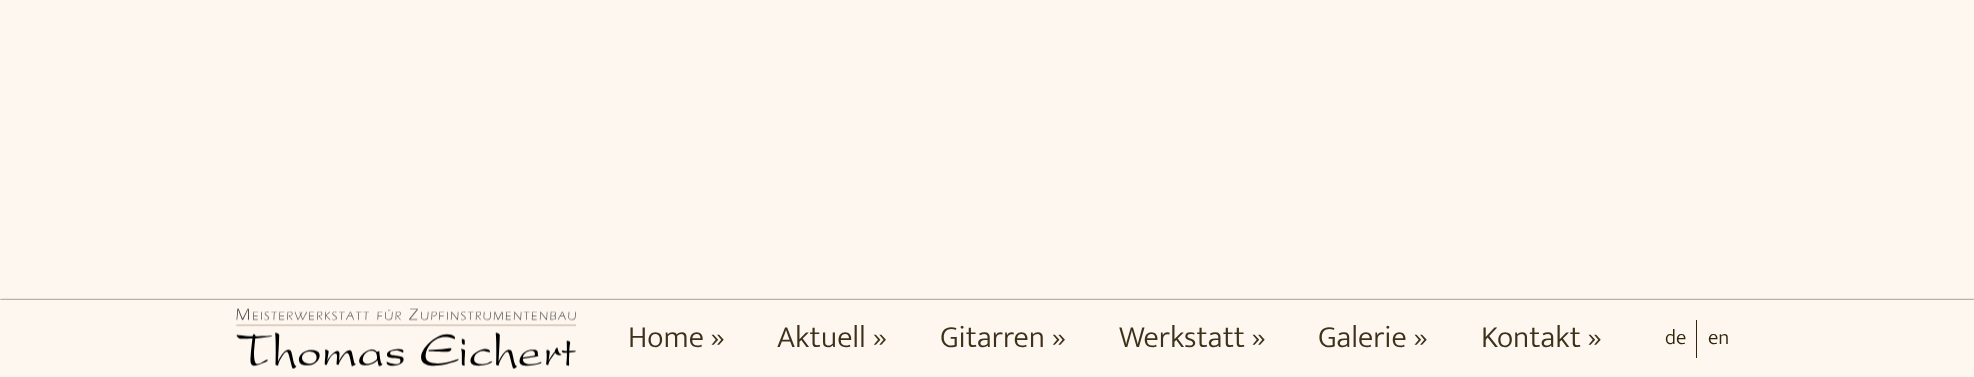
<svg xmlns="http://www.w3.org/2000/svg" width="1974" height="377">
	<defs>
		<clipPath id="clip1"><rect x="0" y="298" width="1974" height="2" /></clipPath>
	</defs>
	<rect width="100%" height="100%" fill="#FDF7F0" />
	<g clip-path="url(#clip1)">
		<rect x="0" y="300" width="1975" height="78" fill="#32260A" filter="blur(1px)" />
	</g>
	<image x="236" y="308" width="340" height="61" href="assets/img1.png" />
	<g font-family="Mukta" font-size="31" font-weight="300" fill="#3D311A">
		<text x="628" y="347">Home »</text>
		<text x="777" y="347">Aktuell »</text>
		<text x="940" y="347">Gitarren »</text>
		<text x="1119" y="347">Werkstatt »</text>
		<text x="1318" y="347">Galerie »</text>
		<text x="1481" y="347">Kontakt »</text>
	</g>
	<rect x="1696" y="320" width="1" height="38" fill="#32260A" />
	<g font-family="Mukta" font-size="21" font-weight="300" fill="#32260A">
		<text x="1665" y="344">de</text>
		<text x="1708" y="344">en</text>
	</g>
</svg>
